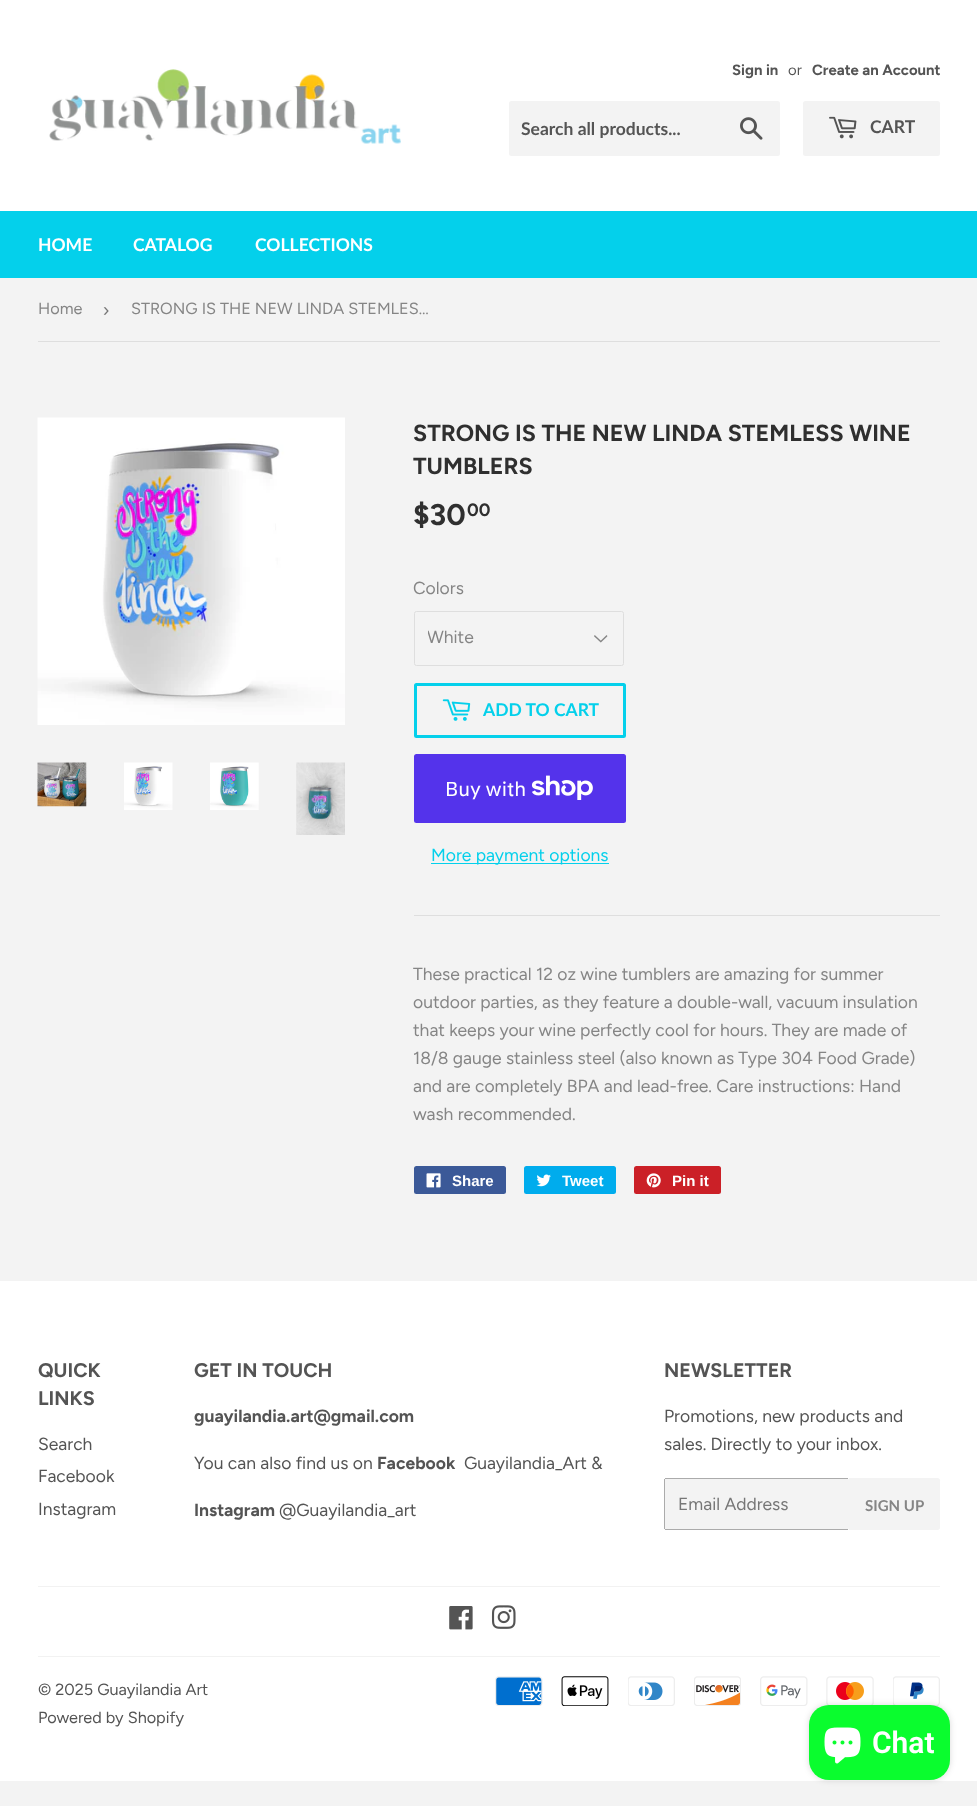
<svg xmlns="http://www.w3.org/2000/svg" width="977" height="1806">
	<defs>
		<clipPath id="clip1"><rect x="428" y="626" width="160" height="25" /></clipPath>
	</defs>
	<rect width="100%" height="100%" fill="#F3F3F3" />
	<rect x="0" y="0" width="977" height="211" fill="#FFFFFF" />
	<image x="49" y="69" width="352" height="75" href="assets/img1.png" />
	<text x="732" y="75" font-family="Figtree" font-size="14.9" font-weight="700" fill="#545454">Sign in</text>
	<text x="788" y="75" font-family="Figtree" font-size="14.9" fill="#545454">or</text>
	<text x="812" y="75" font-family="Figtree" font-size="14.9" font-weight="700" fill="#545454">Create an Account</text>
	<rect x="509" y="101" width="271" height="55" rx="2.5" fill="#F3F3F3" />
	<text x="521" y="135" font-family="Lato" font-size="17.5" font-weight="700" fill="#545454">Search all products...</text>
	<image x="740" y="117" width="23" height="23" href="assets/img2.png" />
	<rect x="803" y="101" width="137" height="55" rx="2.5" fill="#F3F3F3" />
	<image x="829" y="116" width="28" height="23" href="assets/img3.png" />
	<text x="870" y="133" font-family="Lato" font-size="17.5" font-weight="700" fill="#545454">CART</text>
	<rect x="0" y="211" width="977" height="67" fill="#04D0EB" />
	<g font-family="Lato" font-size="17.5" font-weight="700" fill="#FFFFFF">
		<text x="38" y="251">HOME</text>
		<text x="133" y="251">CATALOG</text>
		<text x="255" y="251">COLLECTIONS</text>
	</g>
	<rect x="38" y="341" width="902" height="1" fill="#DEDEDE" />
	<text x="38" y="314" font-family="Figtree" font-size="16.25" fill="#858585">Home</text>
	<text x="103" y="316" font-family="Liberation Sans" font-size="19" fill="#767676">›</text>
	<text x="131" y="314" font-family="Figtree" font-size="16.25" fill="#858585">STRONG IS THE NEW LINDA STEMLES…</text>
	<image x="37" y="417" width="308" height="308" href="assets/img4.png" />
	<image x="37" y="762" width="50" height="45" href="assets/img5.png" />
	<image x="124" y="762" width="49" height="48" href="assets/img6.png" />
	<image x="210" y="762" width="49" height="48" href="assets/img7.png" />
	<image x="296" y="762" width="49" height="73" href="assets/img8.png" />
	<g font-family="Figtree" font-size="23.3" font-weight="700" fill="#2F2F2F">
		<text x="413" y="441">STRONG IS THE NEW LINDA STEMLESS WINE</text>
		<text x="413" y="474">TUMBLERS</text>
	</g>
	<text x="413" y="525" font-family="Figtree" font-size="30" font-weight="700" fill="#2F2F2F">$30</text>
	<text x="467" y="516" font-family="Figtree" font-size="18" font-weight="700" fill="#2F2F2F">00</text>
	<text x="413" y="594" font-family="Figtree" font-size="17.5" fill="#858585">Colors</text>
	<image x="594" y="635" width="14" height="8" href="assets/img9.png" />
	<rect x="414.5" y="611.5" width="209" height="54" rx="2" fill="none" stroke="#DEDEDE" />
	<g clip-path="url(#clip1)">
		<text x="427" y="643" font-family="Figtree" font-size="17.5" fill="#858585">White</text>
	</g>
	<rect x="415.5" y="684.5" width="209" height="52" rx="1" fill="none" stroke="#04D0EB" stroke-width="3" />
	<image x="442" y="699" width="29" height="22" href="assets/img10.png" />
	<text x="483" y="716" font-family="Lato" font-size="17.5" font-weight="700" fill="#04D0EB">ADD TO CART</text>
	<rect x="414" y="754" width="212" height="69" rx="2.5" fill="#5433EB" />
	<text x="445" y="796" font-family="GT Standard" font-size="20" fill="#FFFFFF">Buy with</text>
	<image x="531" y="775" width="62" height="25" href="assets/img11.png" />
	<rect x="431" y="863" width="178" height="1" fill="#04D0EB" />
	<text x="431" y="861" font-family="Figtree" font-size="17.5" fill="#04D0EB">More payment options</text>
	<rect x="414" y="915" width="526" height="1" fill="#DEDEDE" />
	<g font-family="Figtree" font-size="17.5" fill="#858585">
		<text x="413" y="980">These practical 12 oz wine tumblers are amazing for summer</text>
		<text x="413" y="1008">outdoor parties, as they feature a double-wall, vacuum insulation</text>
		<text x="413" y="1036">that keeps your wine perfectly cool for hours. They are made of</text>
		<text x="413" y="1064">18/8 gauge stainless steel (also known as Type 304 Food Grade)</text>
		<text x="413" y="1092">and are completely BPA and lead-free. Care instructions: Hand</text>
		<text x="413" y="1120">wash recommended.</text>
	</g>
	<rect x="414" y="1166" width="92" height="28" rx="2.5" fill="#3B5998" />
	<image x="426" y="1173" width="15" height="15" href="assets/img12.png" />
	<text x="452" y="1186" font-family="Liberation Sans" font-size="15" font-weight="700" fill="#FFFFFF">Share</text>
	<rect x="524" y="1166" width="92" height="28" rx="2.5" fill="#00ACED" />
	<image x="536" y="1174" width="15" height="13" href="assets/img13.png" />
	<text x="562" y="1186" font-family="Liberation Sans" font-size="15" font-weight="700" fill="#FFFFFF">Tweet</text>
	<rect x="634" y="1166" width="87" height="28" rx="2.5" fill="#CB2027" />
	<image x="646" y="1173" width="15" height="15" href="assets/img14.png" />
	<text x="672" y="1186" font-family="Liberation Sans" font-size="15" font-weight="700" fill="#FFFFFF">Pin it</text>
	<rect x="0" y="1281" width="977" height="500" fill="#FFFFFF" />
	<g font-family="Figtree" font-size="19.75" font-weight="700" fill="#545454">
		<text x="38" y="1377">QUICK</text>
		<text x="38" y="1405">LINKS</text>
	</g>
	<g font-family="Figtree" font-size="17.5" fill="#545454">
		<text x="38" y="1450">Search</text>
		<text x="38" y="1482">Facebook</text>
		<text x="38" y="1515">Instagram</text>
	</g>
	<text x="194" y="1377" font-family="Figtree" font-size="19.75" font-weight="700" fill="#545454">GET IN TOUCH</text>
	<text x="194" y="1422" font-family="Figtree" font-size="17.5" font-weight="700" fill="#545454">guayilandia.art@gmail.com</text>
	<text x="194" y="1469" font-family="Figtree" font-size="17.5" fill="#545454">You can also find us on</text>
	<text x="377" y="1469" font-family="Figtree" font-size="17.5" font-weight="700" fill="#545454">Facebook</text>
	<text x="464" y="1469" font-family="Figtree" font-size="17.5" fill="#545454">Guayilandia_Art &amp;</text>
	<text x="194" y="1516" font-family="Figtree" font-size="17.5" font-weight="700" fill="#545454">Instagram</text>
	<text x="279" y="1516" font-family="Figtree" font-size="17.5" fill="#545454">@Guayilandia_art</text>
	<text x="664" y="1377" font-family="Figtree" font-size="19.75" font-weight="700" fill="#545454">NEWSLETTER</text>
	<g font-family="Figtree" font-size="17.5" fill="#545454">
		<text x="664" y="1422">Promotions, new products and</text>
		<text x="664" y="1450">sales. Directly to your inbox.</text>
	</g>
	<rect x="664" y="1478" width="185" height="52" rx="2.5" fill="#F3F3F3" />
	<rect x="665" y="1478" width="183" height="1" fill="#ABABAB" />
	<rect x="665" y="1529" width="183" height="1" fill="#ABABAB" />
	<rect x="664" y="1479" width="1" height="50" fill="#ABABAB" />
	<text x="678" y="1510" font-family="Figtree" font-size="17.5" fill="#767676">Email Address</text>
	<path d="M849 1478H937.5C939 1478 940 1479 940 1480.5V1527.5C940 1529 939 1530 937.5 1530H849Z" fill="#F3F3F3" />
	<text x="865" y="1511" font-family="Lato" font-size="15" font-weight="700" fill="#858585">SIGN UP</text>
	<rect x="38" y="1586" width="902" height="1" fill="#F2F2F2" />
	<image x="449" y="1606" width="24" height="24" href="assets/img15.png" />
	<image x="491" y="1605" width="25" height="24" href="assets/img16.png" />
	<rect x="38" y="1656" width="902" height="1" fill="#F2F2F2" />
	<g font-family="Figtree" font-size="16.25" fill="#545454">
		<text x="38" y="1695">© 2025 Guayilandia Art</text>
		<text x="38" y="1723">Powered by Shopify</text>
	</g>
	<image x="495" y="1676" width="48" height="30" href="assets/img17.png" />
	<image x="561" y="1676" width="48" height="30" href="assets/img18.png" />
	<image x="628" y="1676" width="47" height="30" href="assets/img19.png" />
	<image x="694" y="1676" width="47" height="30" href="assets/img20.png" />
	<image x="760" y="1676" width="48" height="30" href="assets/img21.png" />
	<image x="826" y="1676" width="48" height="30" href="assets/img22.png" />
	<image x="893" y="1676" width="47" height="30" href="assets/img23.png" />
	<rect x="809" y="1705" width="141" height="75" rx="20" fill="#000000" fill-opacity="0.15" filter="blur(3px)" />
	<rect x="809" y="1705" width="141" height="75" rx="20" fill="#0AFD2E" />
	<image x="824" y="1727" width="37" height="37" href="assets/img24.png" />
	<text x="872" y="1753" font-family="Roboto" font-size="30" font-weight="600" fill="#FFFFFF">Chat</text>
</svg>
